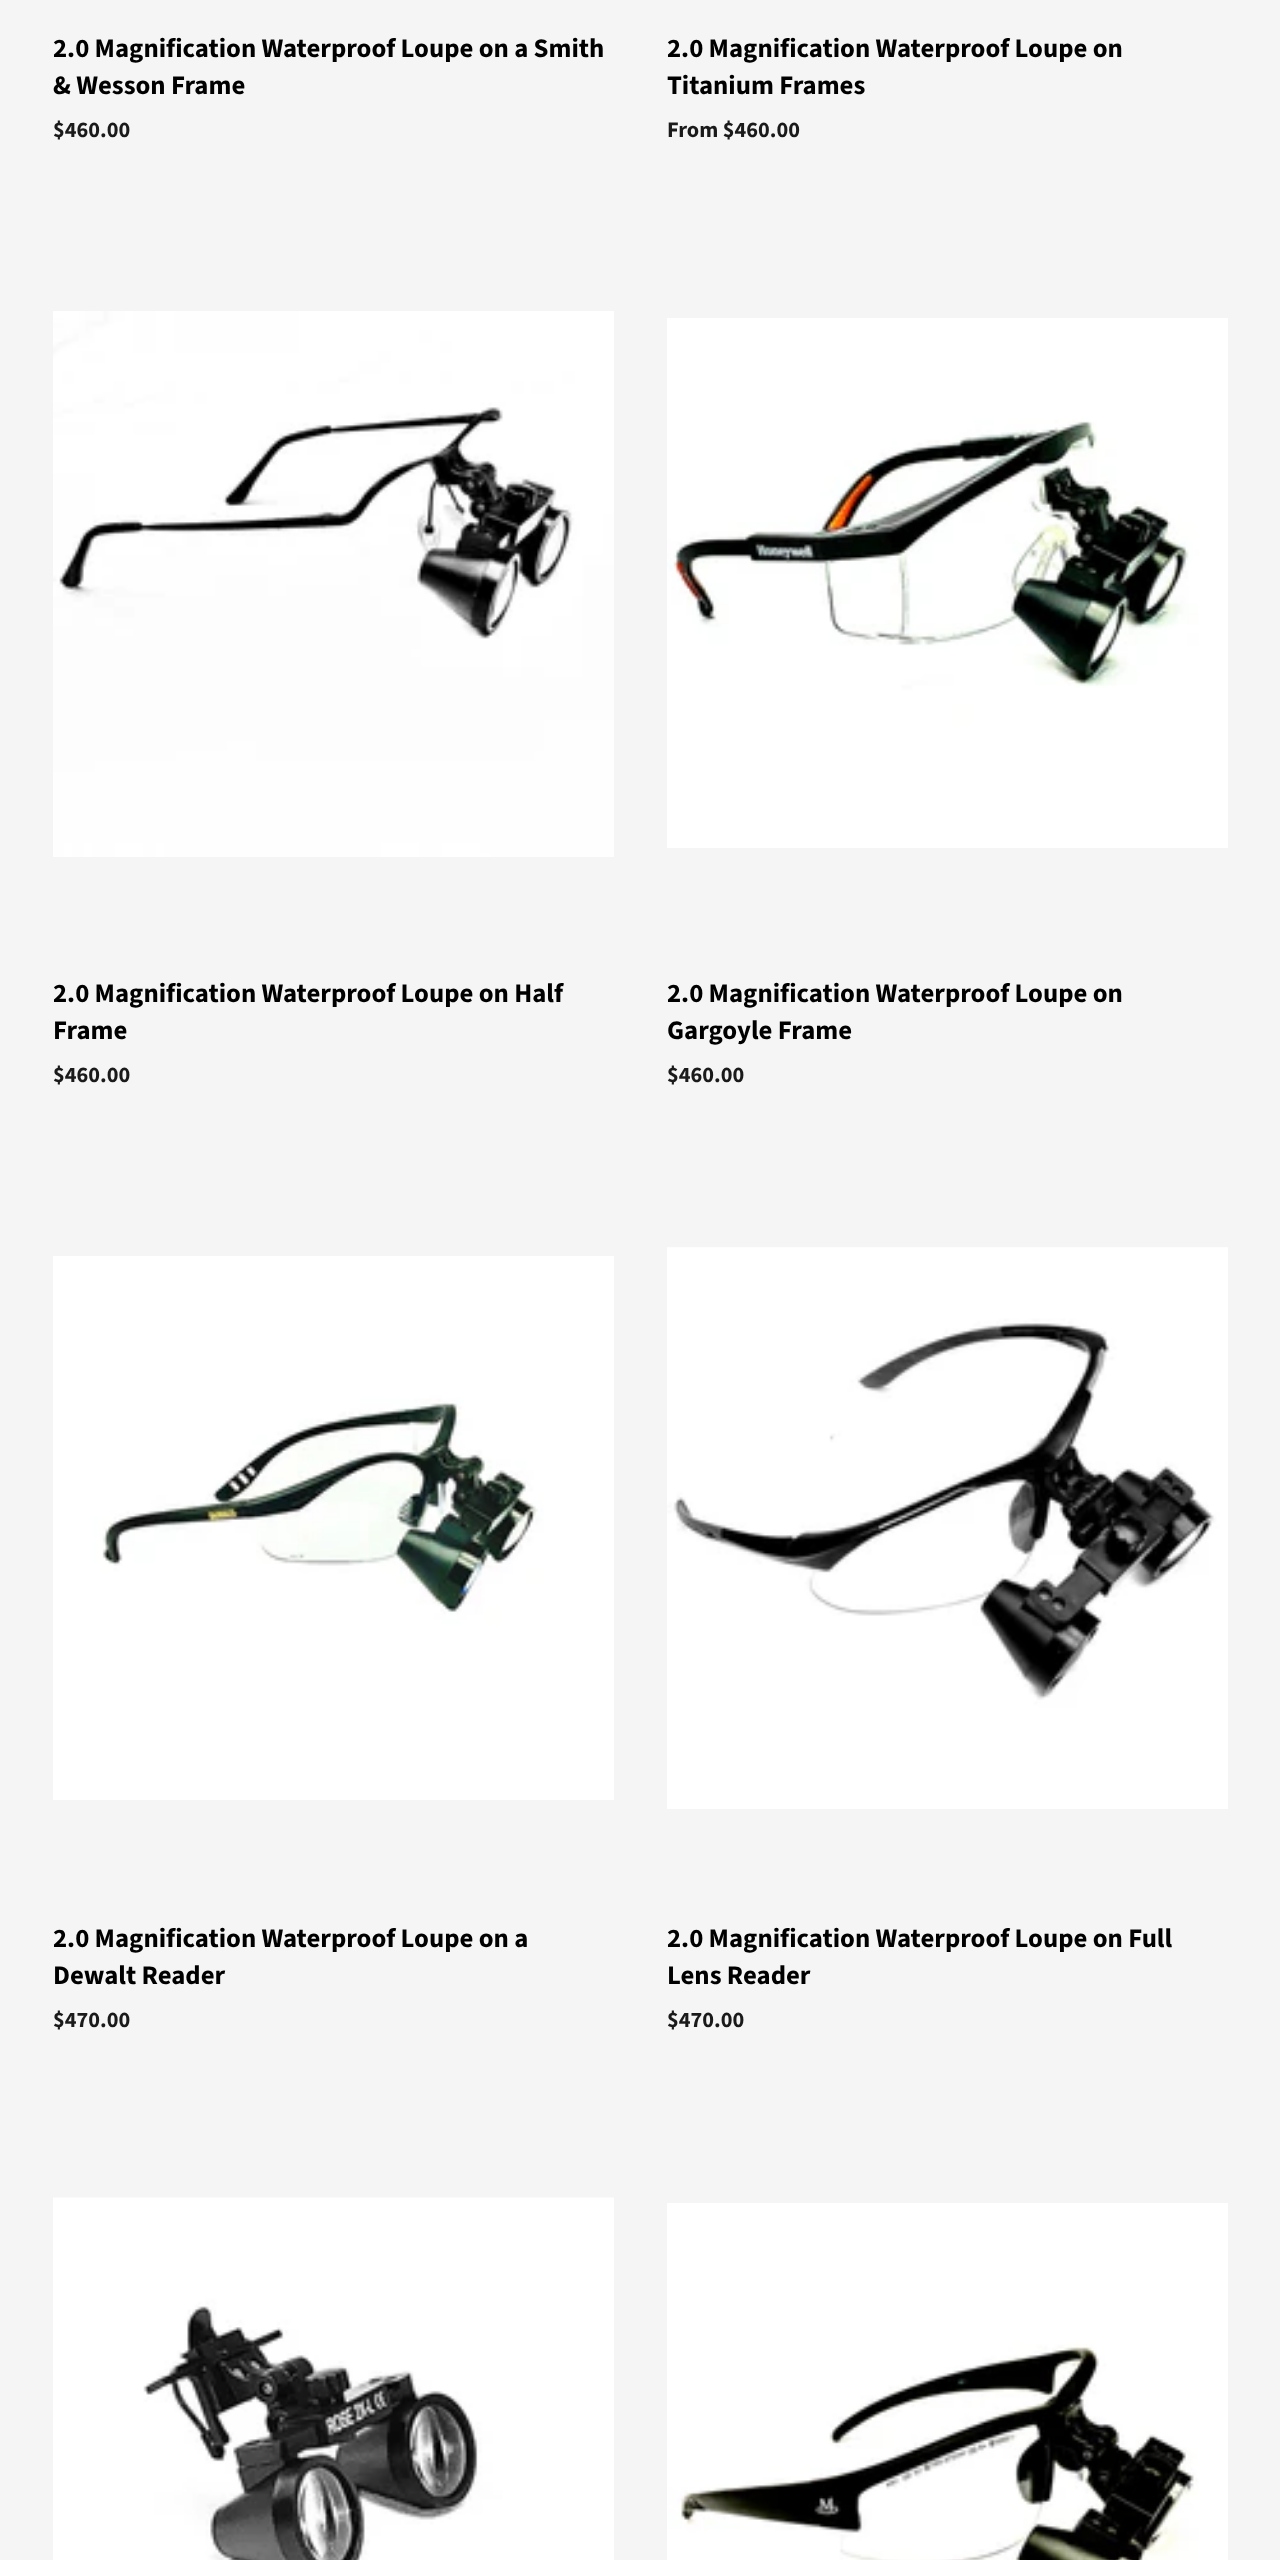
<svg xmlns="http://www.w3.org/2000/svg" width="1280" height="2560">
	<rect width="100%" height="100%" fill="#F5F5F5" />
	<g font-family="Source Sans Pro" font-size="26.75" font-weight="700" fill="#000000">
		<text x="53" y="57">2.0 Magnification Waterproof Loupe on a Smith</text>
		<text x="53" y="94">&amp; Wesson Frame</text>
	</g>
	<text x="53" y="137" font-family="Source Sans Pro" font-size="22.25" font-weight="700" fill="#1A1A1A">$460.00</text>
	<g font-family="Source Sans Pro" font-size="26.75" font-weight="700" fill="#000000">
		<text x="667" y="57">2.0 Magnification Waterproof Loupe on</text>
		<text x="667" y="94">Titanium Frames</text>
	</g>
	<text x="667" y="137" font-family="Source Sans Pro" font-size="22.25" font-weight="700" fill="#1A1A1A">From $460.00</text>
	<image x="53" y="311" width="561" height="546" href="assets/img1.png" />
	<g font-family="Source Sans Pro" font-size="26.75" font-weight="700" fill="#000000">
		<text x="53" y="1002">2.0 Magnification Waterproof Loupe on Half</text>
		<text x="53" y="1039">Frame</text>
	</g>
	<text x="53" y="1082" font-family="Source Sans Pro" font-size="22.25" font-weight="700" fill="#1A1A1A">$460.00</text>
	<image x="667" y="318" width="561" height="530" href="assets/img2.png" />
	<g font-family="Source Sans Pro" font-size="26.75" font-weight="700" fill="#000000">
		<text x="667" y="1002">2.0 Magnification Waterproof Loupe on</text>
		<text x="667" y="1039">Gargoyle Frame</text>
	</g>
	<text x="667" y="1082" font-family="Source Sans Pro" font-size="22.25" font-weight="700" fill="#1A1A1A">$460.00</text>
	<image x="53" y="1256" width="561" height="544" href="assets/img3.png" />
	<g font-family="Source Sans Pro" font-size="26.75" font-weight="700" fill="#000000">
		<text x="53" y="1947">2.0 Magnification Waterproof Loupe on a</text>
		<text x="53" y="1984">Dewalt Reader</text>
	</g>
	<text x="53" y="2027" font-family="Source Sans Pro" font-size="22.25" font-weight="700" fill="#1A1A1A">$470.00</text>
	<image x="667" y="1247" width="561" height="562" href="assets/img4.png" />
	<g font-family="Source Sans Pro" font-size="26.75" font-weight="700" fill="#000000">
		<text x="667" y="1947">2.0 Magnification Waterproof Loupe on Full</text>
		<text x="667" y="1984">Lens Reader</text>
	</g>
	<text x="667" y="2027" font-family="Source Sans Pro" font-size="22.25" font-weight="700" fill="#1A1A1A">$470.00</text>
	<image x="53" y="2197" width="561" height="363" href="assets/img5.png" />
	<image x="667" y="2203" width="561" height="357" href="assets/img6.png" />
</svg>
